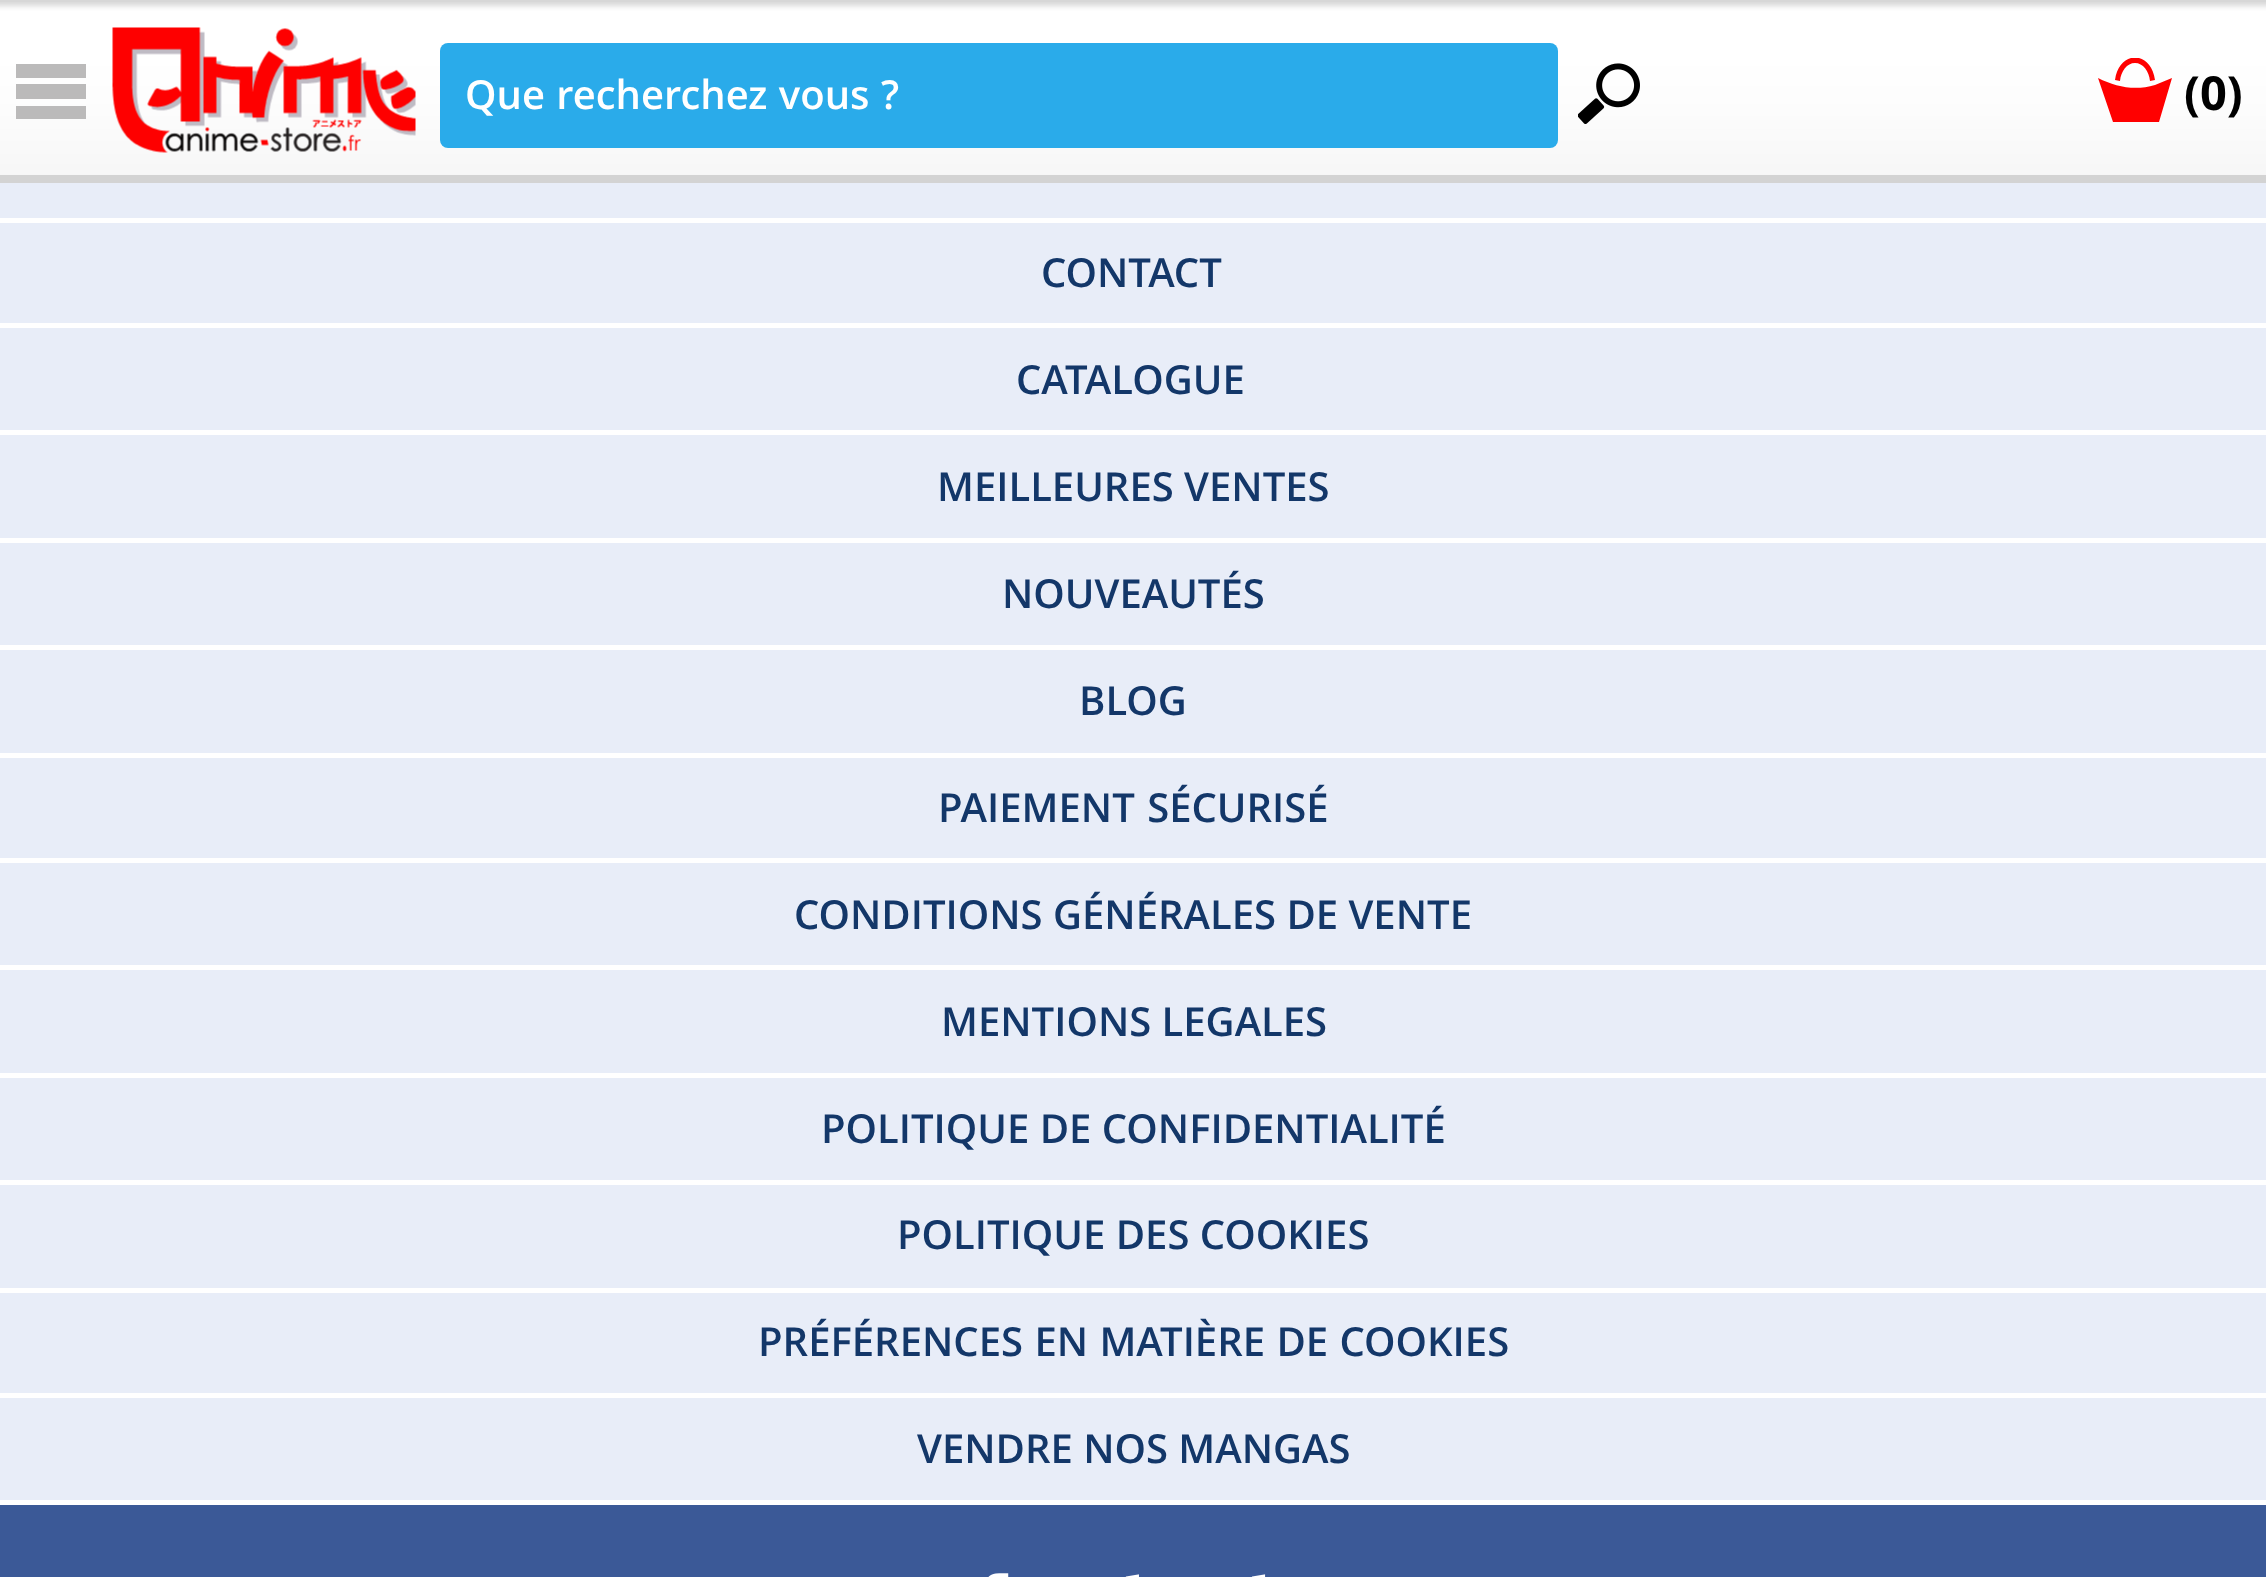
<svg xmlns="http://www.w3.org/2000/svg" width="2266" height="1577">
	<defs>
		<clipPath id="clip1"><rect x="2098" y="58" width="75" height="65" /></clipPath>
	</defs>
	<rect width="100%" height="100%" fill="#E8EDF8" />
	<image x="0" y="0" width="2266" height="175" href="assets/img1.png" />
	<rect x="0" y="175" width="2266" height="8" fill="#D3D3D3" />
	<path d="M16 112V106H86V119H16Z" fill="#BBBABA" />
	<path d="M16 92V84H86V99H16Z" fill="#BBBABA" />
	<path d="M16 71V64H86V78H16Z" fill="#BBBABA" />
	<image x="112" y="27" width="304" height="126" href="assets/img2.png" />
	<rect x="440" y="43" width="1118" height="105" rx="8" fill="#2AABEA" />
	<text x="465" y="109" word-spacing="1" font-family="Open Sans" font-size="40" font-weight="600" fill="#FFFFFF">Que recherchez vous ?</text>
	<image x="1578" y="63" width="62" height="61" href="assets/img3.png" />
	<g clip-path="url(#clip1)">
		<path d="M2135 63C2143 63 2149 71 2150 81L2155 80C2151 50 2119 50 2115 80L2120 81C2121 71 2127 63 2135 63Z" fill="#FF0000" />
	</g>
	<path d="M2098 78L2113 122H2159L2172 78L2155 85C2135 91 2116 87 2098 78Z" fill="#FF0000" />
	<text x="2184" y="110" font-family="Open Sans" font-size="47" font-weight="700" fill="#000000">(0)</text>
	<rect x="0" y="218" width="2266" height="5" fill="#FFFFFF" />
	<text x="1041" y="287" font-family="Open Sans" font-size="40" font-weight="600" fill="#133769">CONTACT</text>
	<rect x="0" y="323" width="2266" height="5" fill="#FFFFFF" />
	<text x="1016" y="394" font-family="Open Sans" font-size="40" font-weight="600" fill="#133769">CATALOGUE</text>
	<rect x="0" y="430" width="2266" height="5" fill="#FFFFFF" />
	<text x="937" y="501" font-family="Open Sans" font-size="40" font-weight="600" fill="#133769">MEILLEURES VENTES</text>
	<rect x="0" y="538" width="2266" height="5" fill="#FFFFFF" />
	<text x="1002" y="608" font-family="Open Sans" font-size="40" font-weight="600" fill="#133769">NOUVEAUTÉS</text>
	<rect x="0" y="645" width="2266" height="5" fill="#FFFFFF" />
	<text x="1079" y="715" font-family="Open Sans" font-size="40" font-weight="600" fill="#133769">BLOG</text>
	<rect x="0" y="753" width="2266" height="5" fill="#FFFFFF" />
	<text x="938" y="822" word-spacing="2" font-family="Open Sans" font-size="40" font-weight="600" fill="#133769">PAIEMENT SÉCURISÉ</text>
	<rect x="0" y="858" width="2266" height="5" fill="#FFFFFF" />
	<text x="794" y="929" font-family="Open Sans" font-size="40" font-weight="600" fill="#133769">CONDITIONS GÉNÉRALES DE VENTE</text>
	<rect x="0" y="965" width="2266" height="5" fill="#FFFFFF" />
	<text x="941" y="1036" font-family="Open Sans" font-size="40" font-weight="600" fill="#133769">MENTIONS LEGALES</text>
	<rect x="0" y="1073" width="2266" height="5" fill="#FFFFFF" />
	<text x="821" y="1143" font-family="Open Sans" font-size="40" font-weight="600" fill="#133769">POLITIQUE DE CONFIDENTIALITÉ</text>
	<rect x="0" y="1180" width="2266" height="5" fill="#FFFFFF" />
	<text x="897" y="1249" font-family="Open Sans" font-size="40" font-weight="600" fill="#133769">POLITIQUE DES COOKIES</text>
	<rect x="0" y="1288" width="2266" height="5" fill="#FFFFFF" />
	<text x="758" y="1356" word-spacing="1" font-family="Open Sans" font-size="40" font-weight="600" fill="#133769">PRÉFÉRENCES EN MATIÈRE DE COOKIES</text>
	<rect x="0" y="1393" width="2266" height="5" fill="#FFFFFF" />
	<text x="917" y="1463" font-family="Open Sans" font-size="40" font-weight="600" fill="#133769">VENDRE NOS MANGAS</text>
	<rect x="0" y="1505" width="2266" height="72" fill="#3B5997" />
	<rect x="0" y="1500" width="2266" height="5" fill="#FFFFFF" />
	<image x="988" y="1573" width="278" height="4" href="assets/img4.png" />
</svg>
